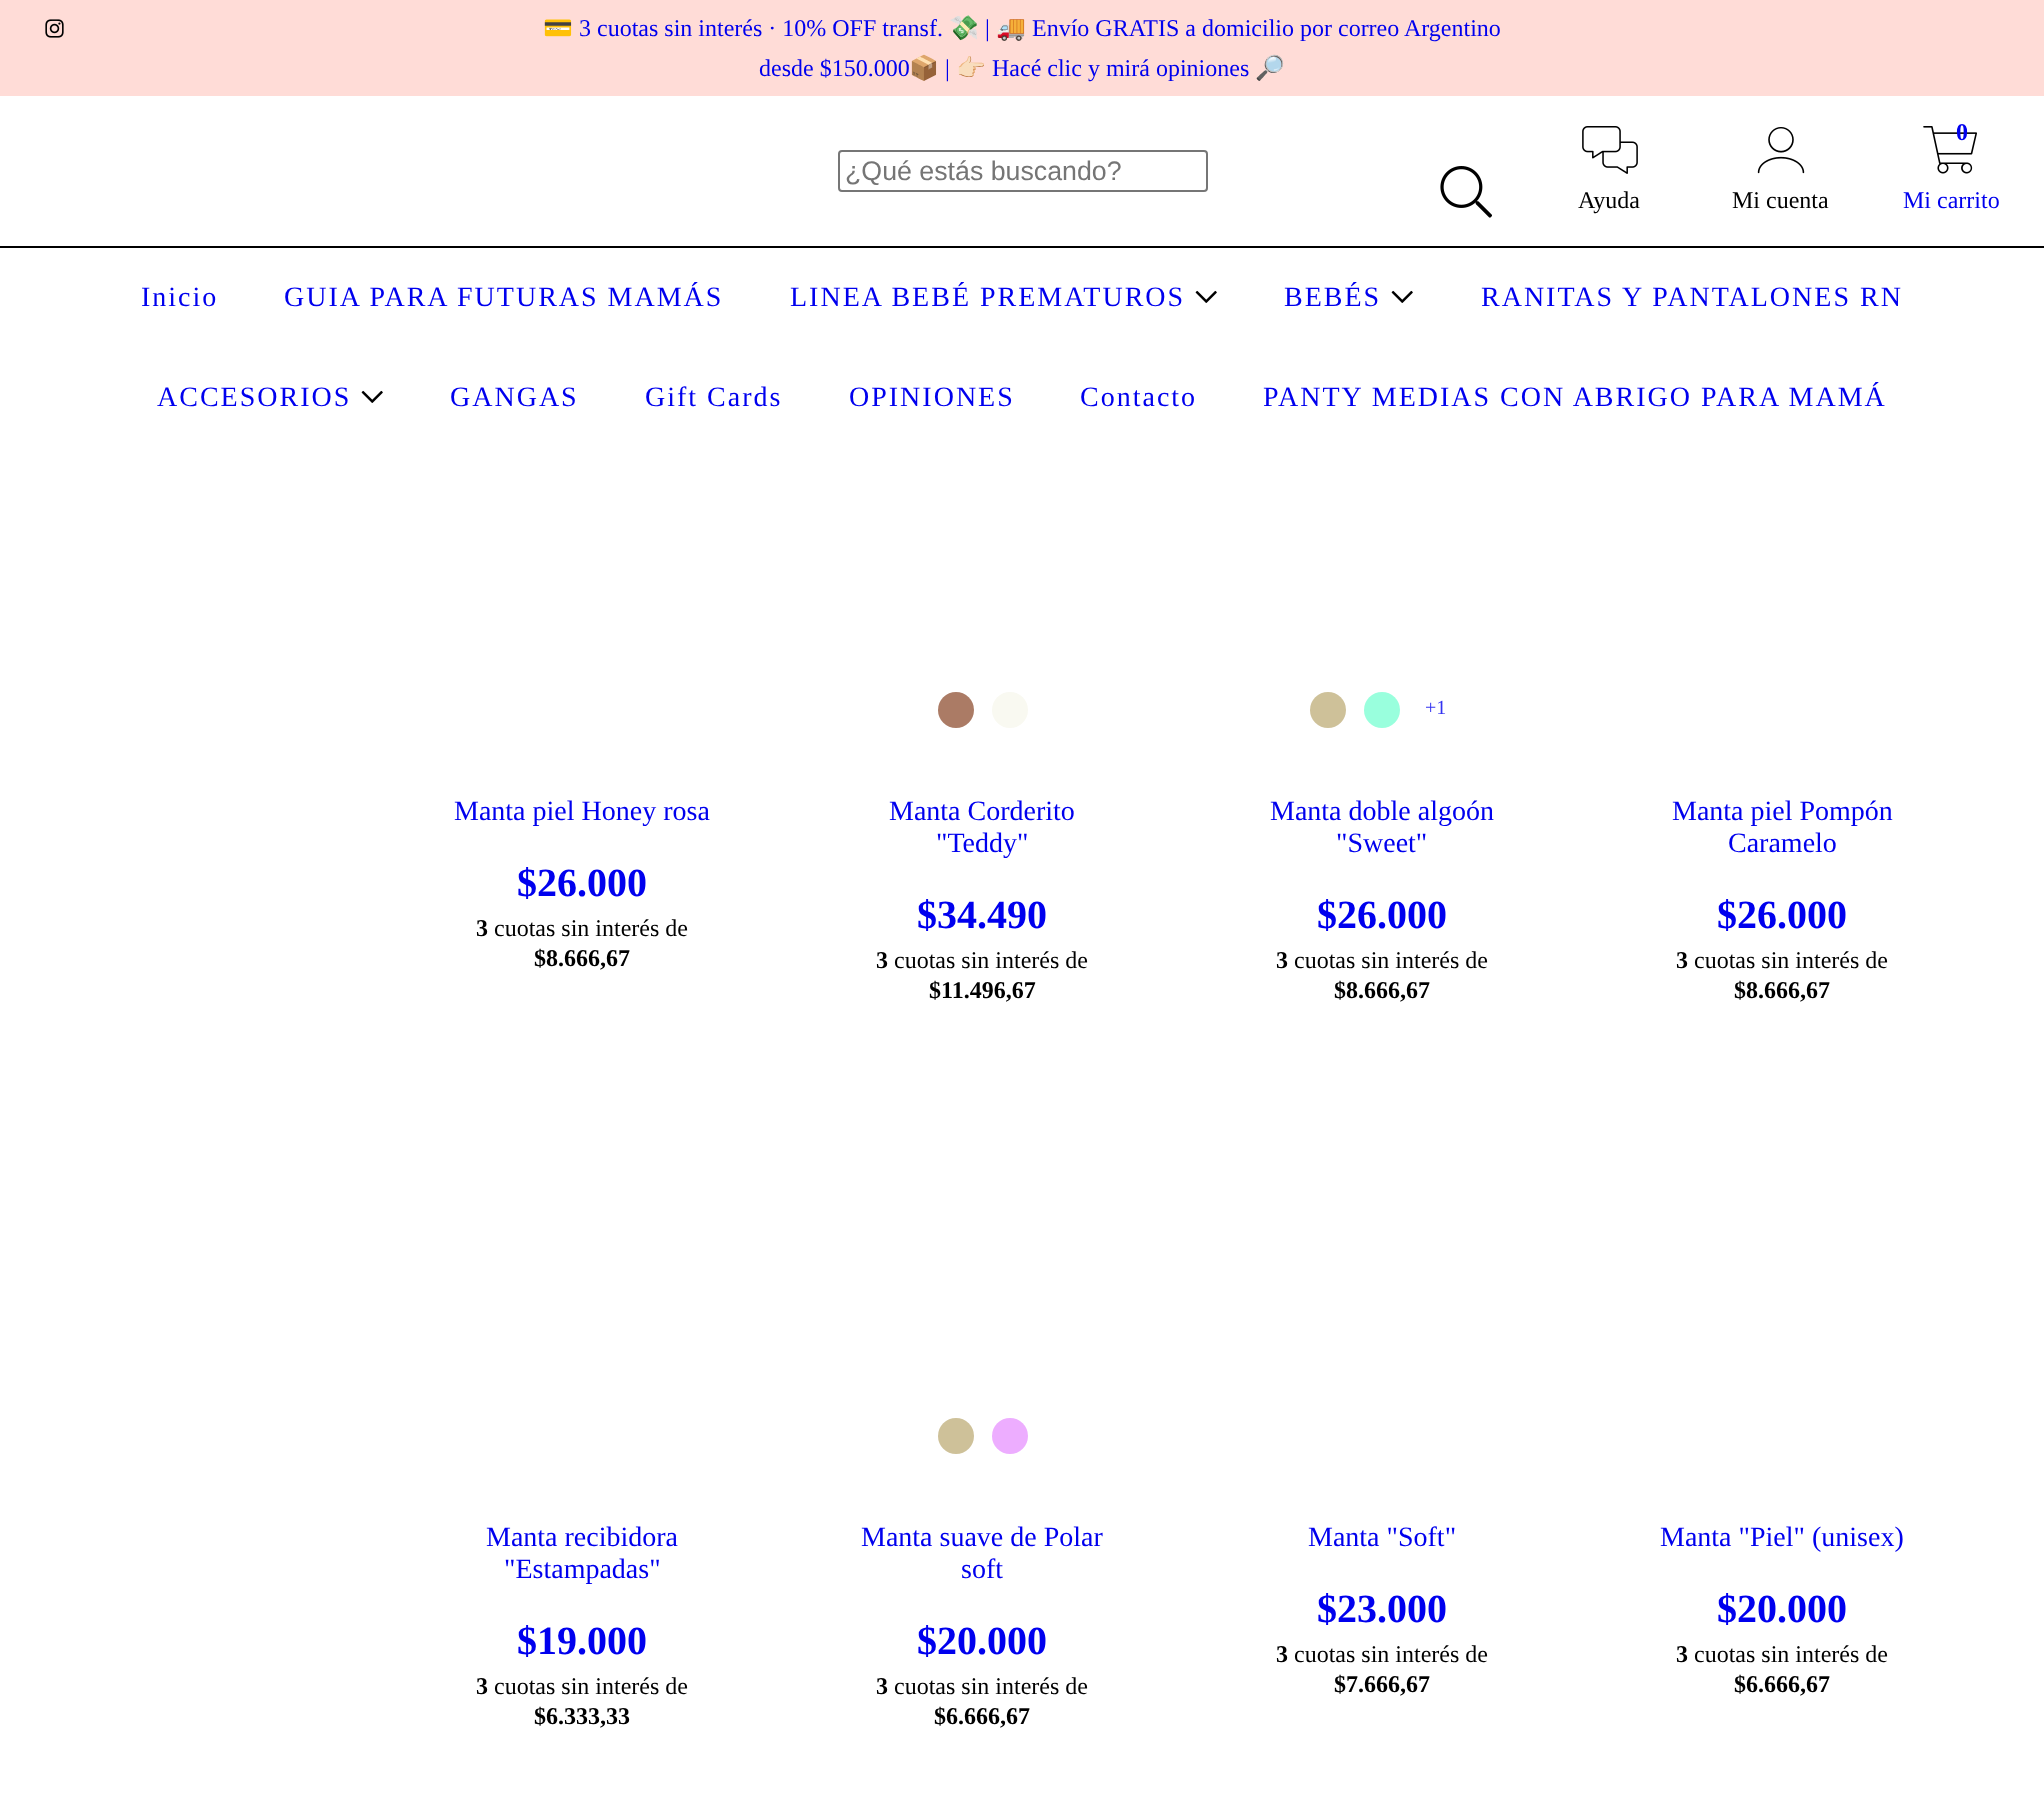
<svg xmlns="http://www.w3.org/2000/svg" width="2044" height="1802">
	<rect width="100%" height="100%" fill="#FFFFFF" />
	<rect x="0" y="0" width="2044" height="96" fill="#FFDCD7" />
	<image x="45" y="19" width="19" height="19" href="assets/img1.png" />
	<text x="543" y="36" font-family="Noto Color Emoji" font-size="24" fill="#0000EE">💳</text>
	<text x="579" y="36" font-family="Liberation Serif" font-size="24" fill="#0000EE">3 cuotas sin interés · 10% OFF transf.</text>
	<text x="949" y="36" font-family="Noto Color Emoji" font-size="24" fill="#0000EE">💸</text>
	<text x="985" y="36" font-family="Liberation Serif" font-size="24" fill="#0000EE">|</text>
	<text x="996" y="36" font-family="Noto Color Emoji" font-size="24" fill="#0000EE">🚚</text>
	<g font-family="Liberation Serif" font-size="24" fill="#0000EE">
		<text x="1032" y="36">Envío GRATIS a domicilio por correo Argentino</text>
		<text x="759" y="76">desde $150.000</text>
	</g>
	<text x="909" y="76" font-family="Noto Color Emoji" font-size="24" fill="#0000EE">📦</text>
	<text x="945" y="76" font-family="Liberation Serif" font-size="24" fill="#0000EE">|</text>
	<text x="956" y="76" font-family="Noto Color Emoji" font-size="24" fill="#0000EE">👉🏻</text>
	<text x="992" y="76" font-family="Liberation Serif" font-size="24" fill="#0000EE">Hacé clic y mirá opiniones</text>
	<text x="1255" y="76" font-family="Noto Color Emoji" font-size="24" fill="#0000EE">🔎</text>
	<rect x="839" y="151" width="368" height="40" rx="3" fill="none" stroke="#767676" stroke-width="2" />
	<text x="845" y="180" font-family="Liberation Sans" font-size="26.75" fill="#757575">¿Qué estás buscando?</text>
	<image x="1440" y="166" width="52" height="52" href="assets/img2.png" />
	<image x="1582" y="126" width="56" height="48" href="assets/img3.png" />
	<text x="1578" y="208" font-family="Liberation Serif" font-size="24" fill="#000000">Ayuda</text>
	<image x="1757" y="127" width="48" height="47" href="assets/img4.png" />
	<text x="1732" y="208" font-family="Liberation Serif" font-size="24" fill="#000000">Mi cuenta</text>
	<image x="1923" y="126" width="54" height="48" href="assets/img5.png" />
	<text x="1956" y="140" font-family="Liberation Serif" font-size="24" font-weight="700" fill="#0000EE">0</text>
	<text x="1903" y="208" font-family="Liberation Serif" font-size="24" fill="#0000EE">Mi carrito</text>
	<rect x="0" y="246" width="2044" height="2" fill="#000000" />
	<g font-family="Liberation Serif" font-size="28" letter-spacing="2" fill="#0000EE">
		<text x="141" y="306">Inicio</text>
		<text x="284" y="306">GUIA PARA FUTURAS MAMÁS</text>
		<text x="790" y="306">LINEA BEBÉ PREMATUROS</text>
	</g>
	<image x="1195" y="290" width="22" height="13" href="assets/img6.png" />
	<text x="1284" y="306" font-family="Liberation Serif" font-size="28" letter-spacing="2" fill="#0000EE">BEBÉS</text>
	<image x="1391" y="290" width="22" height="13" href="assets/img6.png" />
	<g font-family="Liberation Serif" font-size="28" letter-spacing="2" fill="#0000EE">
		<text x="1481" y="306">RANITAS Y PANTALONES RN</text>
		<text x="157" y="406">ACCESORIOS</text>
	</g>
	<image x="361" y="390" width="22" height="13" href="assets/img6.png" />
	<g font-family="Liberation Serif" font-size="28" letter-spacing="2" fill="#0000EE">
		<text x="450" y="406">GANGAS</text>
		<text x="645" y="406">Gift Cards</text>
		<text x="849" y="406">OPINIONES</text>
		<text x="1080" y="406">Contacto</text>
		<text x="1263" y="406">PANTY MEDIAS CON ABRIGO PARA MAMÁ</text>
	</g>
	<text x="454" y="820" font-family="Liberation Serif" font-size="28" fill="#0000EE">Manta piel Honey rosa</text>
	<text x="517" y="896" font-family="Liberation Serif" font-size="40" font-weight="700" fill="#0000EE">$26.000</text>
	<text x="476" y="936" font-family="Liberation Serif" font-size="24" font-weight="700" fill="#000000">3</text>
	<text x="494" y="936" font-family="Liberation Serif" font-size="24" fill="#000000">cuotas sin interés de</text>
	<text x="534" y="966" font-family="Liberation Serif" font-size="24" font-weight="700" fill="#000000">$8.666,67</text>
	<circle cx="956" cy="710" r="18" fill="#AB7B65" />
	<circle cx="1010" cy="710" r="18" fill="#F9F9F1" />
	<g font-family="Liberation Serif" font-size="28" fill="#0000EE">
		<text x="889" y="820">Manta Corderito</text>
		<text x="936" y="852">"Teddy"</text>
	</g>
	<text x="917" y="928" font-family="Liberation Serif" font-size="40" font-weight="700" fill="#0000EE">$34.490</text>
	<text x="876" y="968" font-family="Liberation Serif" font-size="24" font-weight="700" fill="#000000">3</text>
	<text x="894" y="968" font-family="Liberation Serif" font-size="24" fill="#000000">cuotas sin interés de</text>
	<text x="929" y="998" font-family="Liberation Serif" font-size="24" font-weight="700" fill="#000000">$11.496,67</text>
	<circle cx="1328" cy="710" r="18" fill="#CEC199" />
	<circle cx="1382" cy="710" r="18" fill="#99FFDD" />
	<text x="1425" y="714" font-family="Liberation Serif" font-size="20" fill="#3333F1">+1</text>
	<g font-family="Liberation Serif" font-size="28" fill="#0000EE">
		<text x="1270" y="820">Manta doble algoón</text>
		<text x="1336" y="852">"Sweet"</text>
	</g>
	<text x="1317" y="928" font-family="Liberation Serif" font-size="40" font-weight="700" fill="#0000EE">$26.000</text>
	<text x="1276" y="968" font-family="Liberation Serif" font-size="24" font-weight="700" fill="#000000">3</text>
	<text x="1294" y="968" font-family="Liberation Serif" font-size="24" fill="#000000">cuotas sin interés de</text>
	<text x="1334" y="998" font-family="Liberation Serif" font-size="24" font-weight="700" fill="#000000">$8.666,67</text>
	<g font-family="Liberation Serif" font-size="28" fill="#0000EE">
		<text x="1672" y="820">Manta piel Pompón</text>
		<text x="1728" y="852">Caramelo</text>
	</g>
	<text x="1717" y="928" font-family="Liberation Serif" font-size="40" font-weight="700" fill="#0000EE">$26.000</text>
	<text x="1676" y="968" font-family="Liberation Serif" font-size="24" font-weight="700" fill="#000000">3</text>
	<text x="1694" y="968" font-family="Liberation Serif" font-size="24" fill="#000000">cuotas sin interés de</text>
	<text x="1734" y="998" font-family="Liberation Serif" font-size="24" font-weight="700" fill="#000000">$8.666,67</text>
	<g font-family="Liberation Serif" font-size="28" fill="#0000EE">
		<text x="486" y="1546">Manta recibidora</text>
		<text x="504" y="1578">"Estampadas"</text>
	</g>
	<text x="517" y="1654" font-family="Liberation Serif" font-size="40" font-weight="700" fill="#0000EE">$19.000</text>
	<text x="476" y="1694" font-family="Liberation Serif" font-size="24" font-weight="700" fill="#000000">3</text>
	<text x="494" y="1694" font-family="Liberation Serif" font-size="24" fill="#000000">cuotas sin interés de</text>
	<text x="534" y="1724" font-family="Liberation Serif" font-size="24" font-weight="700" fill="#000000">$6.333,33</text>
	<circle cx="956" cy="1436" r="18" fill="#CEC199" />
	<circle cx="1010" cy="1436" r="18" fill="#EDADFF" />
	<g font-family="Liberation Serif" font-size="28" fill="#0000EE">
		<text x="861" y="1546">Manta suave de Polar</text>
		<text x="961" y="1578">soft</text>
	</g>
	<text x="917" y="1654" font-family="Liberation Serif" font-size="40" font-weight="700" fill="#0000EE">$20.000</text>
	<text x="876" y="1694" font-family="Liberation Serif" font-size="24" font-weight="700" fill="#000000">3</text>
	<text x="894" y="1694" font-family="Liberation Serif" font-size="24" fill="#000000">cuotas sin interés de</text>
	<text x="934" y="1724" font-family="Liberation Serif" font-size="24" font-weight="700" fill="#000000">$6.666,67</text>
	<text x="1308" y="1546" font-family="Liberation Serif" font-size="28" fill="#0000EE">Manta "Soft"</text>
	<text x="1317" y="1622" font-family="Liberation Serif" font-size="40" font-weight="700" fill="#0000EE">$23.000</text>
	<text x="1276" y="1662" font-family="Liberation Serif" font-size="24" font-weight="700" fill="#000000">3</text>
	<text x="1294" y="1662" font-family="Liberation Serif" font-size="24" fill="#000000">cuotas sin interés de</text>
	<text x="1334" y="1692" font-family="Liberation Serif" font-size="24" font-weight="700" fill="#000000">$7.666,67</text>
	<text x="1660" y="1546" font-family="Liberation Serif" font-size="28" fill="#0000EE">Manta "Piel" (unisex)</text>
	<text x="1717" y="1622" font-family="Liberation Serif" font-size="40" font-weight="700" fill="#0000EE">$20.000</text>
	<text x="1676" y="1662" font-family="Liberation Serif" font-size="24" font-weight="700" fill="#000000">3</text>
	<text x="1694" y="1662" font-family="Liberation Serif" font-size="24" fill="#000000">cuotas sin interés de</text>
	<text x="1734" y="1692" font-family="Liberation Serif" font-size="24" font-weight="700" fill="#000000">$6.666,67</text>
</svg>
